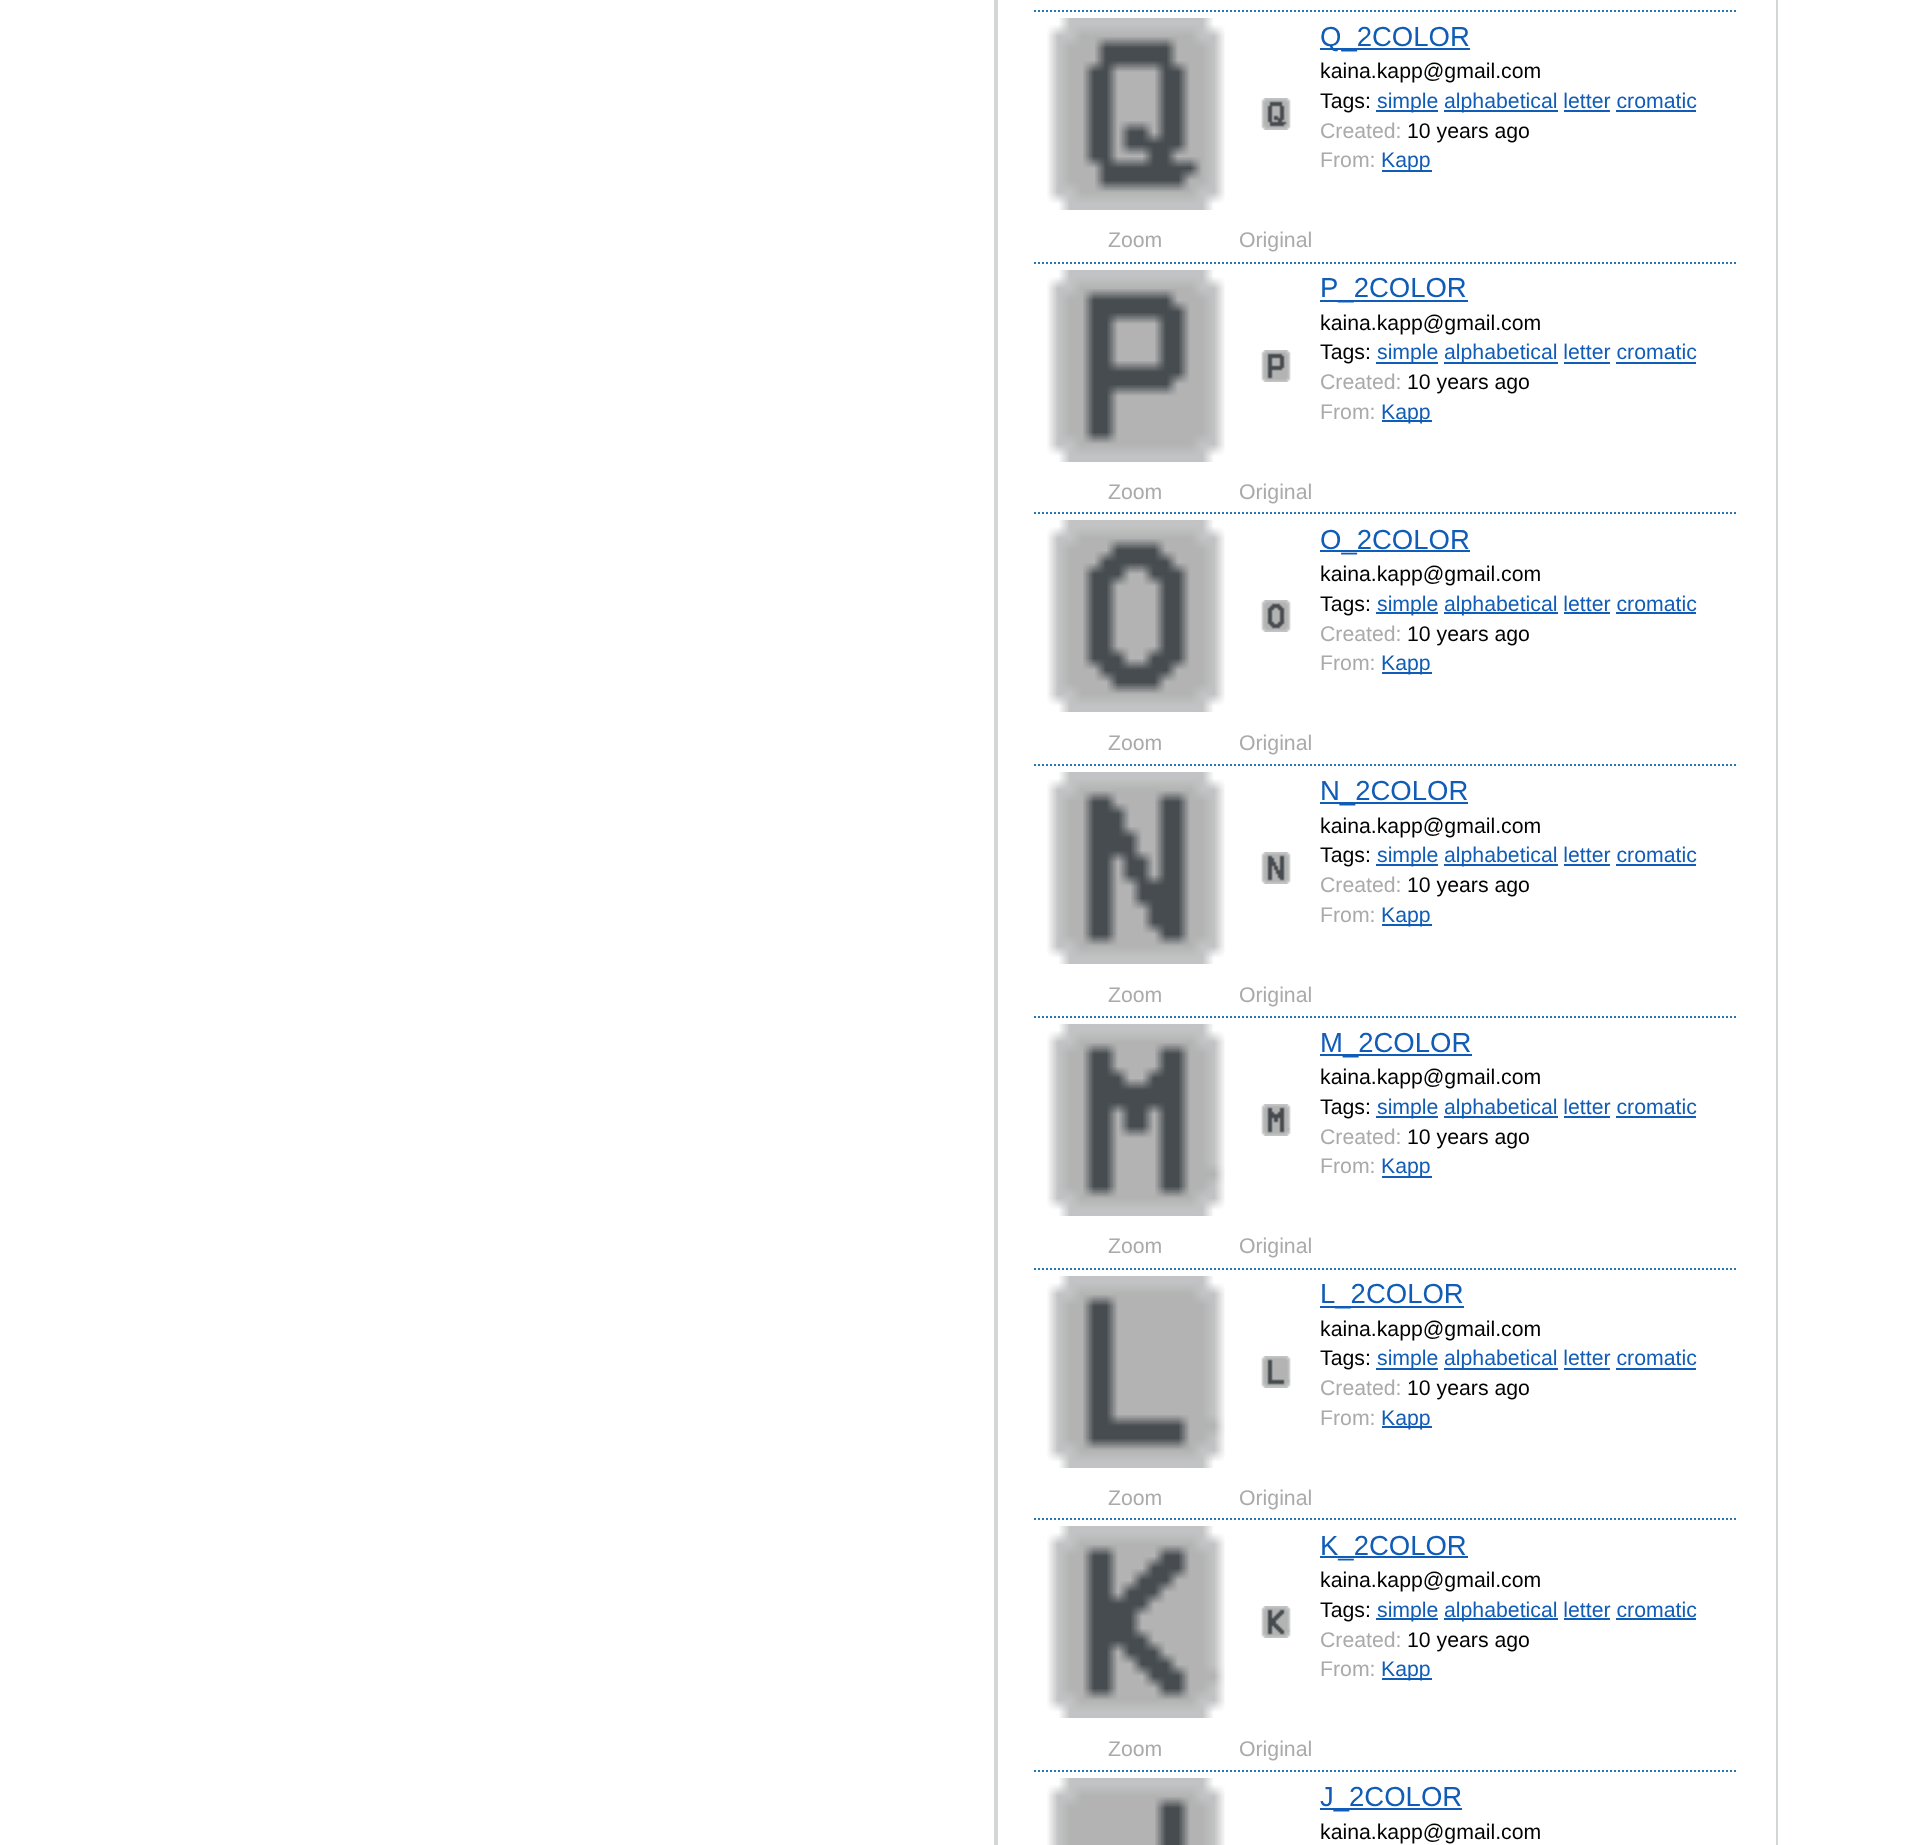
<svg xmlns="http://www.w3.org/2000/svg" width="1926" height="1845">
	<rect width="100%" height="100%" fill="#FFFFFF" />
	<rect x="994" y="0" width="4" height="1845" fill="#D2D6D6" />
	<rect x="1776" y="0" width="2" height="1845" fill="#D2D6D6" />
	<path d="M1034 11H1738" fill="none" stroke="#2677B5" stroke-width="2" stroke-dasharray="2 2" />
	<path d="M1034 263H1738" fill="none" stroke="#2677B5" stroke-width="2" stroke-dasharray="2 2" />
	<image x="1047" y="18" width="178" height="192" href="assets/img1.png" />
	<image x="1261" y="98" width="30" height="32" href="assets/img2.png" />
	<rect x="1320" y="48" width="150" height="2" fill="#105CB6" />
	<text x="1320" y="46" font-family="Liberation Sans" font-size="27.5" fill="#105CB6">Q_2COLOR</text>
	<g font-family="Liberation Sans" font-size="21.25" fill="#000000">
		<text x="1320" y="78">kaina.kapp@gmail.com</text>
		<text x="1320" y="108">Tags:</text>
	</g>
	<rect x="1376" y="110" width="62" height="2" fill="#105CB6" />
	<text x="1377" y="108" font-family="Liberation Sans" font-size="21.25" fill="#105CB6">simple</text>
	<rect x="1444" y="110" width="114" height="2" fill="#105CB6" />
	<text x="1444" y="108" font-family="Liberation Sans" font-size="21.25" fill="#105CB6">alphabetical letter cromatic</text>
	<rect x="1564" y="110" width="46" height="2" fill="#105CB6" />
	<rect x="1616" y="110" width="80" height="2" fill="#105CB6" />
	<text x="1320" y="138" font-family="Liberation Sans" font-size="21.25" fill="#AAAAAA">Created:</text>
	<text x="1407" y="138" font-family="Liberation Sans" font-size="21.25" fill="#000000">10 years ago</text>
	<text x="1320" y="167" font-family="Liberation Sans" font-size="21.25" fill="#AAAAAA">From:</text>
	<rect x="1382" y="170" width="50" height="2" fill="#105CB6" />
	<text x="1381" y="167" font-family="Liberation Sans" font-size="21.25" fill="#105CB6">Kapp</text>
	<g font-family="Liberation Sans" font-size="21.25" fill="#AAAAAA">
		<text x="1108" y="247">Zoom</text>
		<text x="1239" y="247">Original</text>
	</g>
	<path d="M1034 513H1738" fill="none" stroke="#2677B5" stroke-width="2" stroke-dasharray="2 2" />
	<image x="1047" y="270" width="178" height="192" href="assets/img3.png" />
	<image x="1261" y="350" width="30" height="32" href="assets/img4.png" />
	<rect x="1320" y="300" width="148" height="2" fill="#105CB6" />
	<text x="1320" y="297" font-family="Liberation Sans" font-size="27.5" fill="#105CB6">P_2COLOR</text>
	<g font-family="Liberation Sans" font-size="21.25" fill="#000000">
		<text x="1320" y="330">kaina.kapp@gmail.com</text>
		<text x="1320" y="359">Tags:</text>
	</g>
	<rect x="1376" y="362" width="62" height="2" fill="#105CB6" />
	<text x="1377" y="359" font-family="Liberation Sans" font-size="21.25" fill="#105CB6">simple</text>
	<rect x="1444" y="362" width="114" height="2" fill="#105CB6" />
	<text x="1444" y="359" font-family="Liberation Sans" font-size="21.25" fill="#105CB6">alphabetical letter cromatic</text>
	<rect x="1564" y="362" width="46" height="2" fill="#105CB6" />
	<rect x="1616" y="362" width="80" height="2" fill="#105CB6" />
	<text x="1320" y="389" font-family="Liberation Sans" font-size="21.25" fill="#AAAAAA">Created:</text>
	<text x="1407" y="389" font-family="Liberation Sans" font-size="21.25" fill="#000000">10 years ago</text>
	<text x="1320" y="419" font-family="Liberation Sans" font-size="21.25" fill="#AAAAAA">From:</text>
	<rect x="1382" y="420" width="50" height="2" fill="#105CB6" />
	<text x="1381" y="419" font-family="Liberation Sans" font-size="21.25" fill="#105CB6">Kapp</text>
	<g font-family="Liberation Sans" font-size="21.25" fill="#AAAAAA">
		<text x="1108" y="499">Zoom</text>
		<text x="1239" y="499">Original</text>
	</g>
	<path d="M1034 765H1738" fill="none" stroke="#2677B5" stroke-width="2" stroke-dasharray="2 2" />
	<image x="1047" y="520" width="178" height="192" href="assets/img5.png" />
	<image x="1261" y="600" width="30" height="32" href="assets/img6.png" />
	<rect x="1320" y="550" width="150" height="2" fill="#105CB6" />
	<text x="1320" y="549" font-family="Liberation Sans" font-size="27.5" fill="#105CB6">O_2COLOR</text>
	<g font-family="Liberation Sans" font-size="21.25" fill="#000000">
		<text x="1320" y="581">kaina.kapp@gmail.com</text>
		<text x="1320" y="611">Tags:</text>
	</g>
	<rect x="1376" y="612" width="62" height="2" fill="#105CB6" />
	<text x="1377" y="611" font-family="Liberation Sans" font-size="21.25" fill="#105CB6">simple</text>
	<rect x="1444" y="612" width="114" height="2" fill="#105CB6" />
	<text x="1444" y="611" font-family="Liberation Sans" font-size="21.25" fill="#105CB6">alphabetical letter cromatic</text>
	<rect x="1564" y="612" width="46" height="2" fill="#105CB6" />
	<rect x="1616" y="612" width="80" height="2" fill="#105CB6" />
	<text x="1320" y="641" font-family="Liberation Sans" font-size="21.25" fill="#AAAAAA">Created:</text>
	<text x="1407" y="641" font-family="Liberation Sans" font-size="21.25" fill="#000000">10 years ago</text>
	<text x="1320" y="670" font-family="Liberation Sans" font-size="21.25" fill="#AAAAAA">From:</text>
	<rect x="1382" y="672" width="50" height="2" fill="#105CB6" />
	<text x="1381" y="670" font-family="Liberation Sans" font-size="21.25" fill="#105CB6">Kapp</text>
	<g font-family="Liberation Sans" font-size="21.25" fill="#AAAAAA">
		<text x="1108" y="750">Zoom</text>
		<text x="1239" y="750">Original</text>
	</g>
	<path d="M1034 1017H1738" fill="none" stroke="#2677B5" stroke-width="2" stroke-dasharray="2 2" />
	<image x="1047" y="772" width="178" height="192" href="assets/img7.png" />
	<image x="1261" y="852" width="30" height="32" href="assets/img8.png" />
	<rect x="1320" y="802" width="148" height="2" fill="#105CB6" />
	<text x="1320" y="800" font-family="Liberation Sans" font-size="27.5" fill="#105CB6">N_2COLOR</text>
	<g font-family="Liberation Sans" font-size="21.25" fill="#000000">
		<text x="1320" y="833">kaina.kapp@gmail.com</text>
		<text x="1320" y="862">Tags:</text>
	</g>
	<rect x="1376" y="864" width="62" height="2" fill="#105CB6" />
	<text x="1377" y="862" font-family="Liberation Sans" font-size="21.25" fill="#105CB6">simple</text>
	<rect x="1444" y="864" width="114" height="2" fill="#105CB6" />
	<text x="1444" y="862" font-family="Liberation Sans" font-size="21.25" fill="#105CB6">alphabetical letter cromatic</text>
	<rect x="1564" y="864" width="46" height="2" fill="#105CB6" />
	<rect x="1616" y="864" width="80" height="2" fill="#105CB6" />
	<text x="1320" y="892" font-family="Liberation Sans" font-size="21.25" fill="#AAAAAA">Created:</text>
	<text x="1407" y="892" font-family="Liberation Sans" font-size="21.25" fill="#000000">10 years ago</text>
	<text x="1320" y="922" font-family="Liberation Sans" font-size="21.25" fill="#AAAAAA">From:</text>
	<rect x="1382" y="924" width="50" height="2" fill="#105CB6" />
	<text x="1381" y="922" font-family="Liberation Sans" font-size="21.25" fill="#105CB6">Kapp</text>
	<g font-family="Liberation Sans" font-size="21.25" fill="#AAAAAA">
		<text x="1108" y="1002">Zoom</text>
		<text x="1239" y="1002">Original</text>
	</g>
	<path d="M1034 1269H1738" fill="none" stroke="#2677B5" stroke-width="2" stroke-dasharray="2 2" />
	<image x="1047" y="1024" width="178" height="192" href="assets/img9.png" />
	<image x="1261" y="1104" width="30" height="32" href="assets/img10.png" />
	<rect x="1320" y="1054" width="152" height="2" fill="#105CB6" />
	<text x="1320" y="1052" font-family="Liberation Sans" font-size="27.5" fill="#105CB6">M_2COLOR</text>
	<g font-family="Liberation Sans" font-size="21.25" fill="#000000">
		<text x="1320" y="1084">kaina.kapp@gmail.com</text>
		<text x="1320" y="1114">Tags:</text>
	</g>
	<rect x="1376" y="1116" width="62" height="2" fill="#105CB6" />
	<text x="1377" y="1114" font-family="Liberation Sans" font-size="21.25" fill="#105CB6">simple</text>
	<rect x="1444" y="1116" width="114" height="2" fill="#105CB6" />
	<text x="1444" y="1114" font-family="Liberation Sans" font-size="21.25" fill="#105CB6">alphabetical letter cromatic</text>
	<rect x="1564" y="1116" width="46" height="2" fill="#105CB6" />
	<rect x="1616" y="1116" width="80" height="2" fill="#105CB6" />
	<text x="1320" y="1144" font-family="Liberation Sans" font-size="21.25" fill="#AAAAAA">Created:</text>
	<text x="1407" y="1144" font-family="Liberation Sans" font-size="21.25" fill="#000000">10 years ago</text>
	<text x="1320" y="1173" font-family="Liberation Sans" font-size="21.25" fill="#AAAAAA">From:</text>
	<rect x="1382" y="1176" width="50" height="2" fill="#105CB6" />
	<text x="1381" y="1173" font-family="Liberation Sans" font-size="21.25" fill="#105CB6">Kapp</text>
	<g font-family="Liberation Sans" font-size="21.25" fill="#AAAAAA">
		<text x="1108" y="1253">Zoom</text>
		<text x="1239" y="1253">Original</text>
	</g>
	<path d="M1034 1519H1738" fill="none" stroke="#2677B5" stroke-width="2" stroke-dasharray="2 2" />
	<image x="1047" y="1276" width="178" height="192" href="assets/img11.png" />
	<image x="1261" y="1356" width="30" height="32" href="assets/img12.png" />
	<rect x="1320" y="1306" width="144" height="2" fill="#105CB6" />
	<text x="1320" y="1303" font-family="Liberation Sans" font-size="27.5" fill="#105CB6">L_2COLOR</text>
	<g font-family="Liberation Sans" font-size="21.25" fill="#000000">
		<text x="1320" y="1336">kaina.kapp@gmail.com</text>
		<text x="1320" y="1365">Tags:</text>
	</g>
	<rect x="1376" y="1368" width="62" height="2" fill="#105CB6" />
	<text x="1377" y="1365" font-family="Liberation Sans" font-size="21.25" fill="#105CB6">simple</text>
	<rect x="1444" y="1368" width="114" height="2" fill="#105CB6" />
	<text x="1444" y="1365" font-family="Liberation Sans" font-size="21.25" fill="#105CB6">alphabetical letter cromatic</text>
	<rect x="1564" y="1368" width="46" height="2" fill="#105CB6" />
	<rect x="1616" y="1368" width="80" height="2" fill="#105CB6" />
	<text x="1320" y="1395" font-family="Liberation Sans" font-size="21.25" fill="#AAAAAA">Created:</text>
	<text x="1407" y="1395" font-family="Liberation Sans" font-size="21.25" fill="#000000">10 years ago</text>
	<text x="1320" y="1425" font-family="Liberation Sans" font-size="21.25" fill="#AAAAAA">From:</text>
	<rect x="1382" y="1426" width="50" height="2" fill="#105CB6" />
	<text x="1381" y="1425" font-family="Liberation Sans" font-size="21.25" fill="#105CB6">Kapp</text>
	<g font-family="Liberation Sans" font-size="21.25" fill="#AAAAAA">
		<text x="1108" y="1505">Zoom</text>
		<text x="1239" y="1505">Original</text>
	</g>
	<path d="M1034 1771H1738" fill="none" stroke="#2677B5" stroke-width="2" stroke-dasharray="2 2" />
	<image x="1047" y="1526" width="178" height="192" href="assets/img13.png" />
	<image x="1261" y="1606" width="30" height="32" href="assets/img14.png" />
	<rect x="1320" y="1556" width="148" height="2" fill="#105CB6" />
	<text x="1320" y="1555" font-family="Liberation Sans" font-size="27.5" fill="#105CB6">K_2COLOR</text>
	<g font-family="Liberation Sans" font-size="21.25" fill="#000000">
		<text x="1320" y="1587">kaina.kapp@gmail.com</text>
		<text x="1320" y="1617">Tags:</text>
	</g>
	<rect x="1376" y="1618" width="62" height="2" fill="#105CB6" />
	<text x="1377" y="1617" font-family="Liberation Sans" font-size="21.25" fill="#105CB6">simple</text>
	<rect x="1444" y="1618" width="114" height="2" fill="#105CB6" />
	<text x="1444" y="1617" font-family="Liberation Sans" font-size="21.25" fill="#105CB6">alphabetical letter cromatic</text>
	<rect x="1564" y="1618" width="46" height="2" fill="#105CB6" />
	<rect x="1616" y="1618" width="80" height="2" fill="#105CB6" />
	<text x="1320" y="1647" font-family="Liberation Sans" font-size="21.25" fill="#AAAAAA">Created:</text>
	<text x="1407" y="1647" font-family="Liberation Sans" font-size="21.25" fill="#000000">10 years ago</text>
	<text x="1320" y="1676" font-family="Liberation Sans" font-size="21.25" fill="#AAAAAA">From:</text>
	<rect x="1382" y="1678" width="50" height="2" fill="#105CB6" />
	<text x="1381" y="1676" font-family="Liberation Sans" font-size="21.25" fill="#105CB6">Kapp</text>
	<g font-family="Liberation Sans" font-size="21.25" fill="#AAAAAA">
		<text x="1108" y="1756">Zoom</text>
		<text x="1239" y="1756">Original</text>
	</g>
	<image x="1047" y="1778" width="178" height="67" href="assets/img15.png" />
	<rect x="1320" y="1808" width="142" height="2" fill="#105CB6" />
	<text x="1320" y="1806" font-family="Liberation Sans" font-size="27.5" fill="#105CB6">J_2COLOR</text>
	<text x="1320" y="1839" font-family="Liberation Sans" font-size="21.25" fill="#000000">kaina.kapp@gmail.com</text>
</svg>
